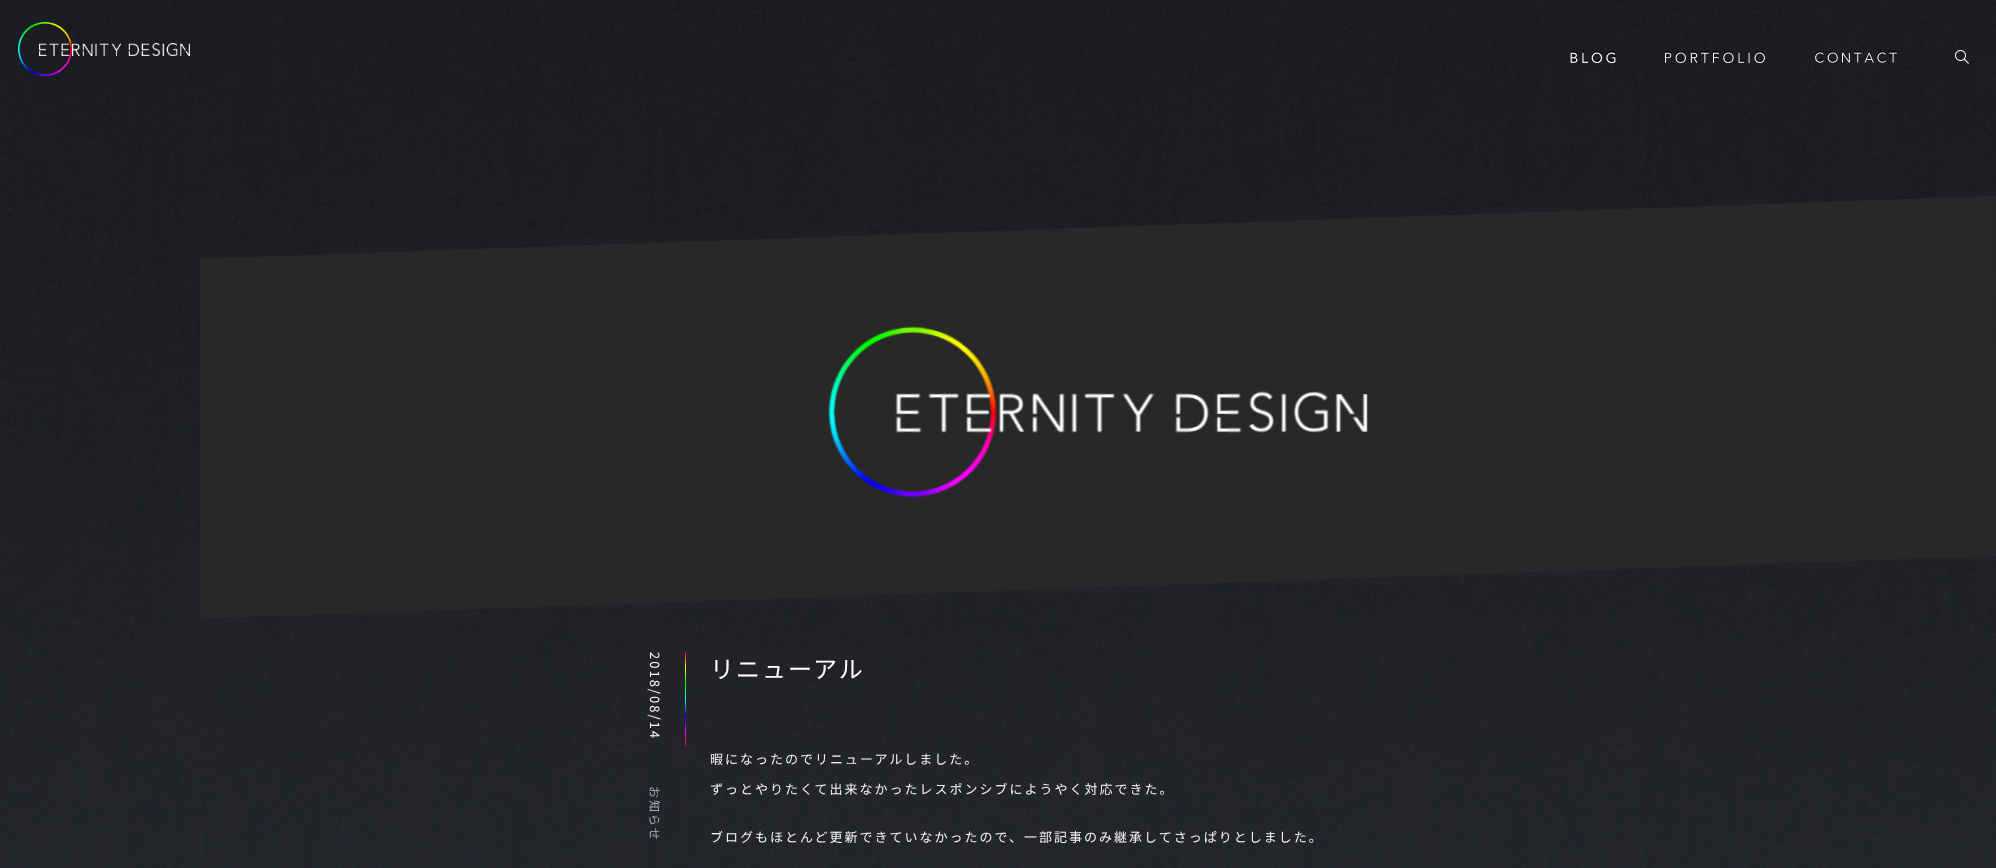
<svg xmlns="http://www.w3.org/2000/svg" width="1996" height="868">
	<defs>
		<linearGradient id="g1" gradientUnits="userSpaceOnUse" x1="686" y1="746" x2="686" y2="652"><stop offset="0" stop-color="#FF0000" /><stop offset="0.15" stop-color="#FF00FF" /><stop offset="0.33" stop-color="#0000FF" /><stop offset="0.49" stop-color="#00FFFF" /><stop offset="0.67" stop-color="#00FF00" /><stop offset="0.84" stop-color="#FFFF00" /><stop offset="1" stop-color="#FF0000" /></linearGradient>
	</defs>
	<rect width="100%" height="100%" fill="#FFFFFF" />
	<image x="0" y="0" width="1996" height="868" href="assets/img1.png" />
	<image x="18" y="22" width="54" height="54" href="assets/img2.png" />
	<image x="39" y="43" width="151" height="13" href="assets/img3.png" />
	<image x="1570" y="51" width="46" height="12" href="assets/img4.png" />
	<image x="1665" y="51" width="100" height="12" href="assets/img5.png" />
	<image x="1815" y="51" width="82" height="12" href="assets/img6.png" />
	<image x="1955" y="50" width="14" height="14" href="assets/img7.png" />
	<image x="200" y="196" width="1796" height="423" href="assets/img8.png" />
	<text x="650" y="652" transform="rotate(90 650 652)" font-family="Noto Sans JP" font-size="13" letter-spacing="2" fill="#FFFFFF">2018/08/14</text>
	<rect x="685" y="652" width="1" height="94" fill="url(#g1)" />
	<text x="650" y="786" transform="rotate(90 650 786)" font-family="Noto Sans JP" font-size="12" letter-spacing="2" fill="#A9AFBB">お知らせ</text>
	<text x="710" y="678" font-family="Noto Sans JP" font-size="24" letter-spacing="2" fill="#FFFFFF">リニューアル</text>
	<g font-family="Noto Sans JP" font-size="13" letter-spacing="2" fill="#F4F4F4">
		<text x="710" y="764">暇になったのでリニューアルしました。</text>
		<text x="710" y="794">ずっとやりたくて出来なかったレスポンシブにようやく対応できた。</text>
		<text x="710" y="842">ブログもほとんど更新できていなかったので、一部記事のみ継承してさっぱりとしました。</text>
	</g>
</svg>
